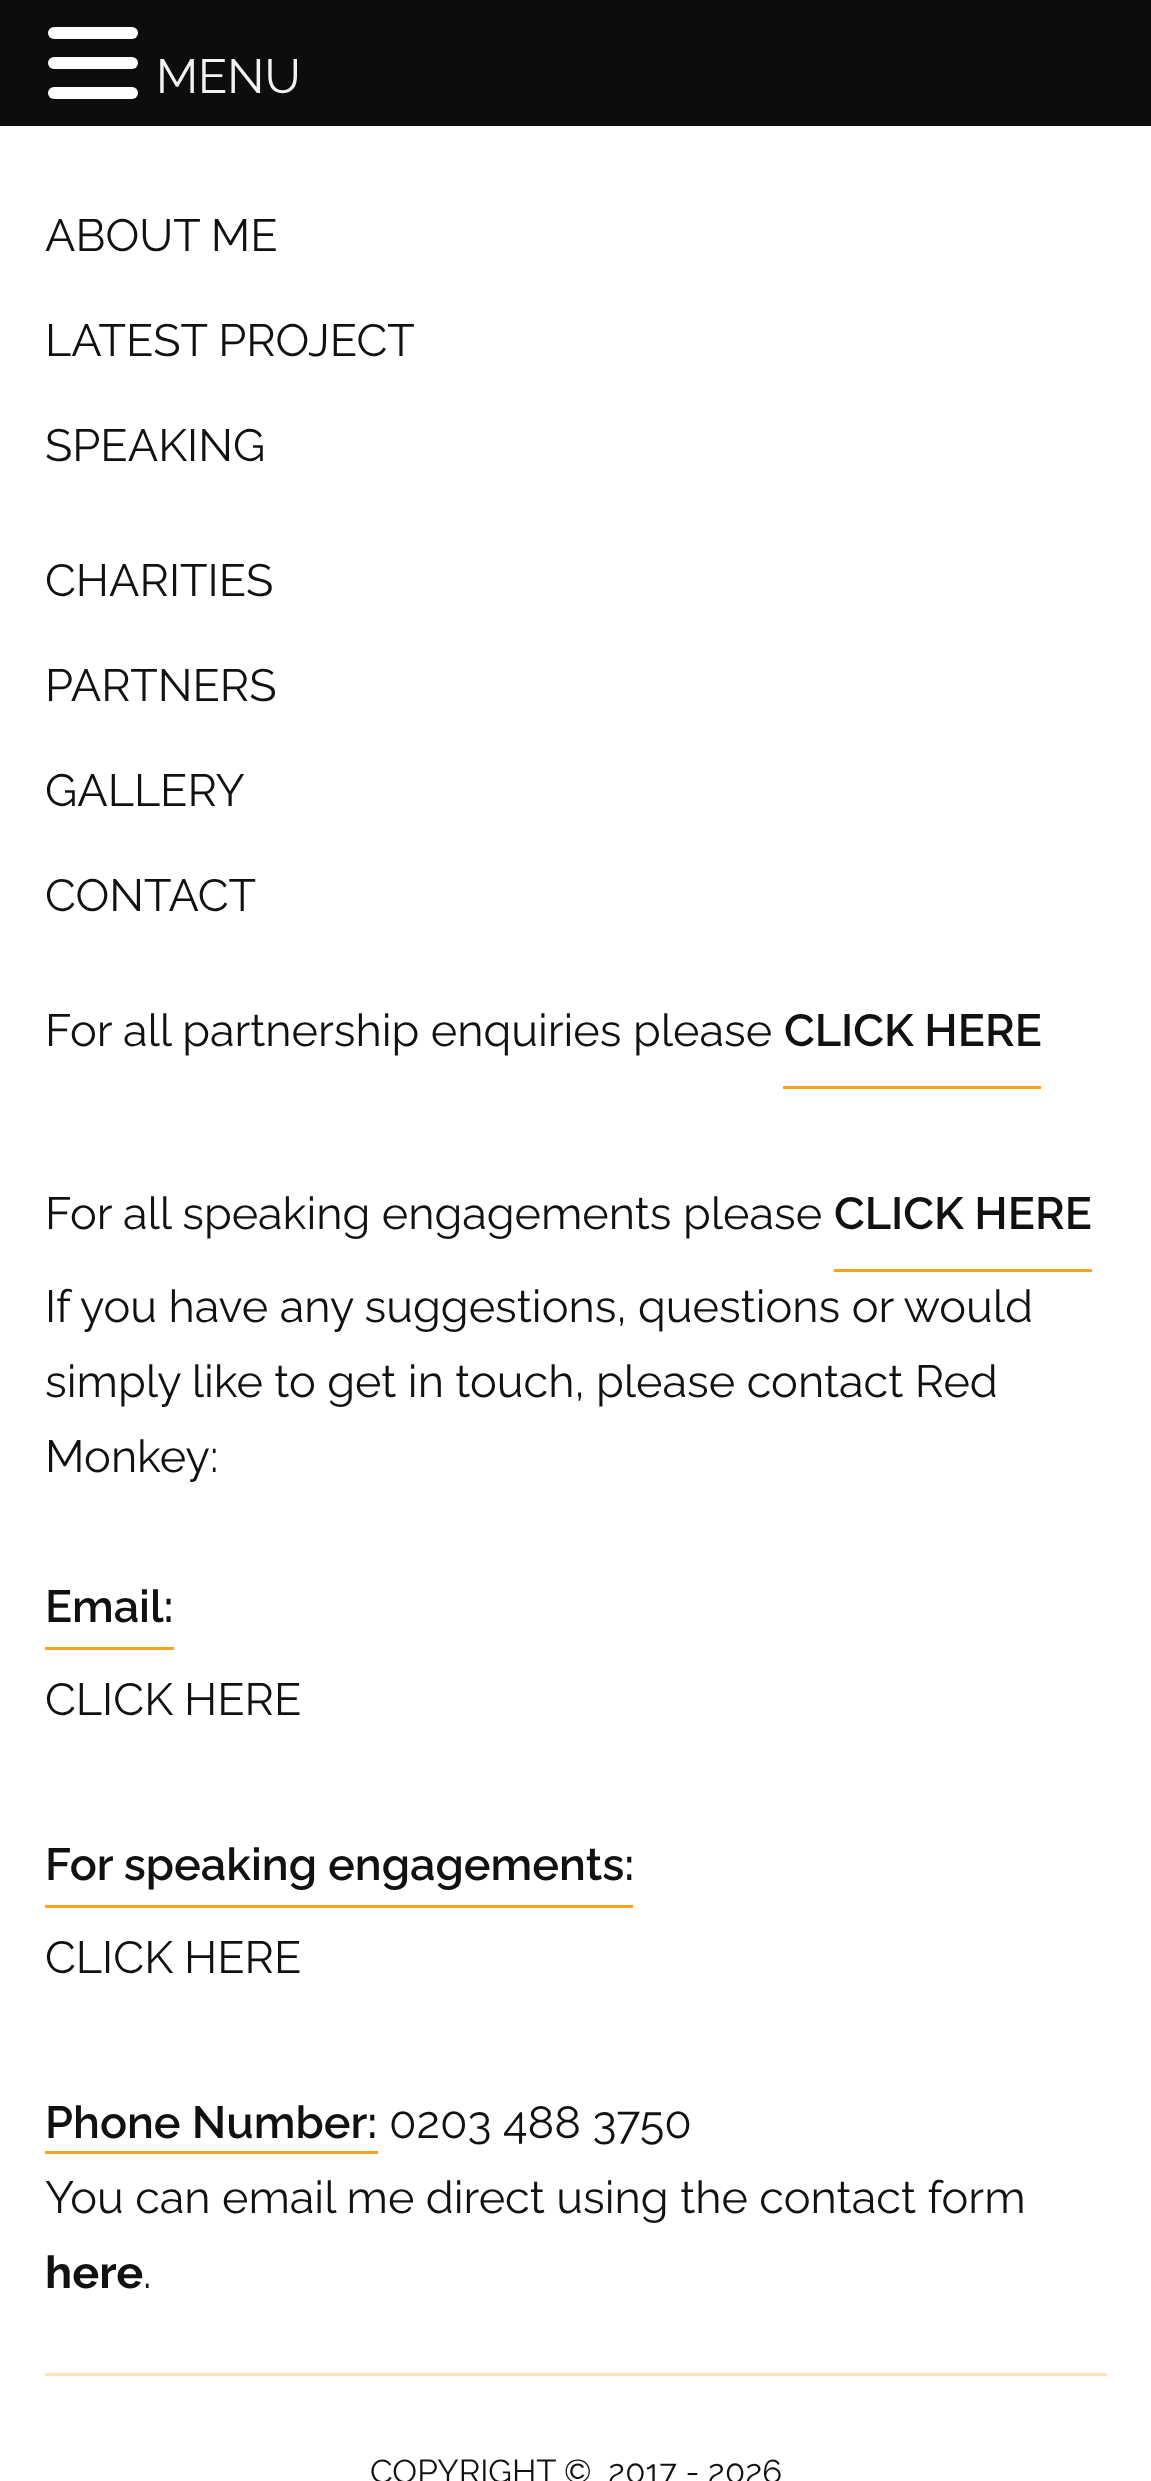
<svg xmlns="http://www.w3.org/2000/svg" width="1151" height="2481">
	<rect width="100%" height="100%" fill="#FFFFFF" />
	<rect x="0" y="0" width="1151" height="126" fill="#0D0D0D" />
	<rect x="48" y="27" width="90" height="12" rx="6" fill="#FFFFFF" />
	<rect x="48" y="57" width="90" height="12" rx="6" fill="#FFFFFF" />
	<rect x="48" y="87" width="90" height="12" rx="6" fill="#FFFFFF" />
	<text x="156" y="93" font-family="Raleway" font-size="48" fill="#F2F2F2">MENU</text>
	<g font-family="Raleway" font-size="45" fill="#111111">
		<text x="45" y="251">ABOUT ME</text>
		<text x="45" y="356">LATEST PROJECT</text>
		<text x="45" y="461">SPEAKING</text>
		<text x="45" y="596">CHARITIES</text>
		<text x="45" y="701">PARTNERS</text>
		<text x="45" y="806">GALLERY</text>
		<text x="45" y="911">CONTACT</text>
		<text x="45" y="1046">For all partnership enquiries please</text>
	</g>
	<rect x="783" y="1086" width="258" height="3" fill="#F9A322" />
	<text x="784" y="1046" font-family="Raleway" font-size="45" font-weight="600" fill="#111111">CLICK HERE</text>
	<text x="45" y="1229" font-family="Raleway" font-size="45" fill="#111111">For all speaking engagements please</text>
	<rect x="834" y="1269" width="258" height="3" fill="#F9A322" />
	<text x="834" y="1229" font-family="Raleway" font-size="45" font-weight="600" fill="#111111">CLICK HERE</text>
	<g font-family="Raleway" font-size="45" fill="#111111">
		<text x="45" y="1322">If you have any suggestions, questions or would</text>
		<text x="45" y="1397">simply like to get in touch, please contact Red</text>
		<text x="45" y="1472">Monkey:</text>
	</g>
	<rect x="45" y="1647" width="129" height="3" fill="#F9A322" />
	<text x="45" y="1622" font-family="Raleway" font-size="45" font-weight="600" fill="#111111">Email:</text>
	<text x="45" y="1715" font-family="Raleway" font-size="45" fill="#111111">CLICK HERE</text>
	<rect x="45" y="1905" width="588" height="3" fill="#F9A322" />
	<text x="45" y="1880" font-family="Raleway" font-size="45" font-weight="600" fill="#111111">For speaking engagements:</text>
	<text x="45" y="1973" font-family="Raleway" font-size="45" fill="#111111">CLICK HERE</text>
	<text x="45" y="2138" font-family="Raleway" font-size="45" font-weight="600" fill="#111111">Phone Number:</text>
	<rect x="45" y="2151" width="333" height="3" fill="#F9A322" />
	<g font-family="Raleway" font-size="45" fill="#111111">
		<text x="389" y="2138">0203 488 3750</text>
		<text x="45" y="2213">You can email me direct using the contact form</text>
	</g>
	<text x="45" y="2288" font-family="Raleway" font-size="45" font-weight="700" fill="#111111">here</text>
	<text x="143" y="2288" font-family="Raleway" font-size="45" fill="#111111">.</text>
	<rect x="45" y="2373" width="1062" height="3" fill="#FDE3BD" />
	<g font-family="Raleway" font-size="33" fill="#111111">
		<text x="370" y="2483">COPYRIGHT ©</text>
		<text x="608" y="2483">2017 - 2026</text>
	</g>
</svg>
